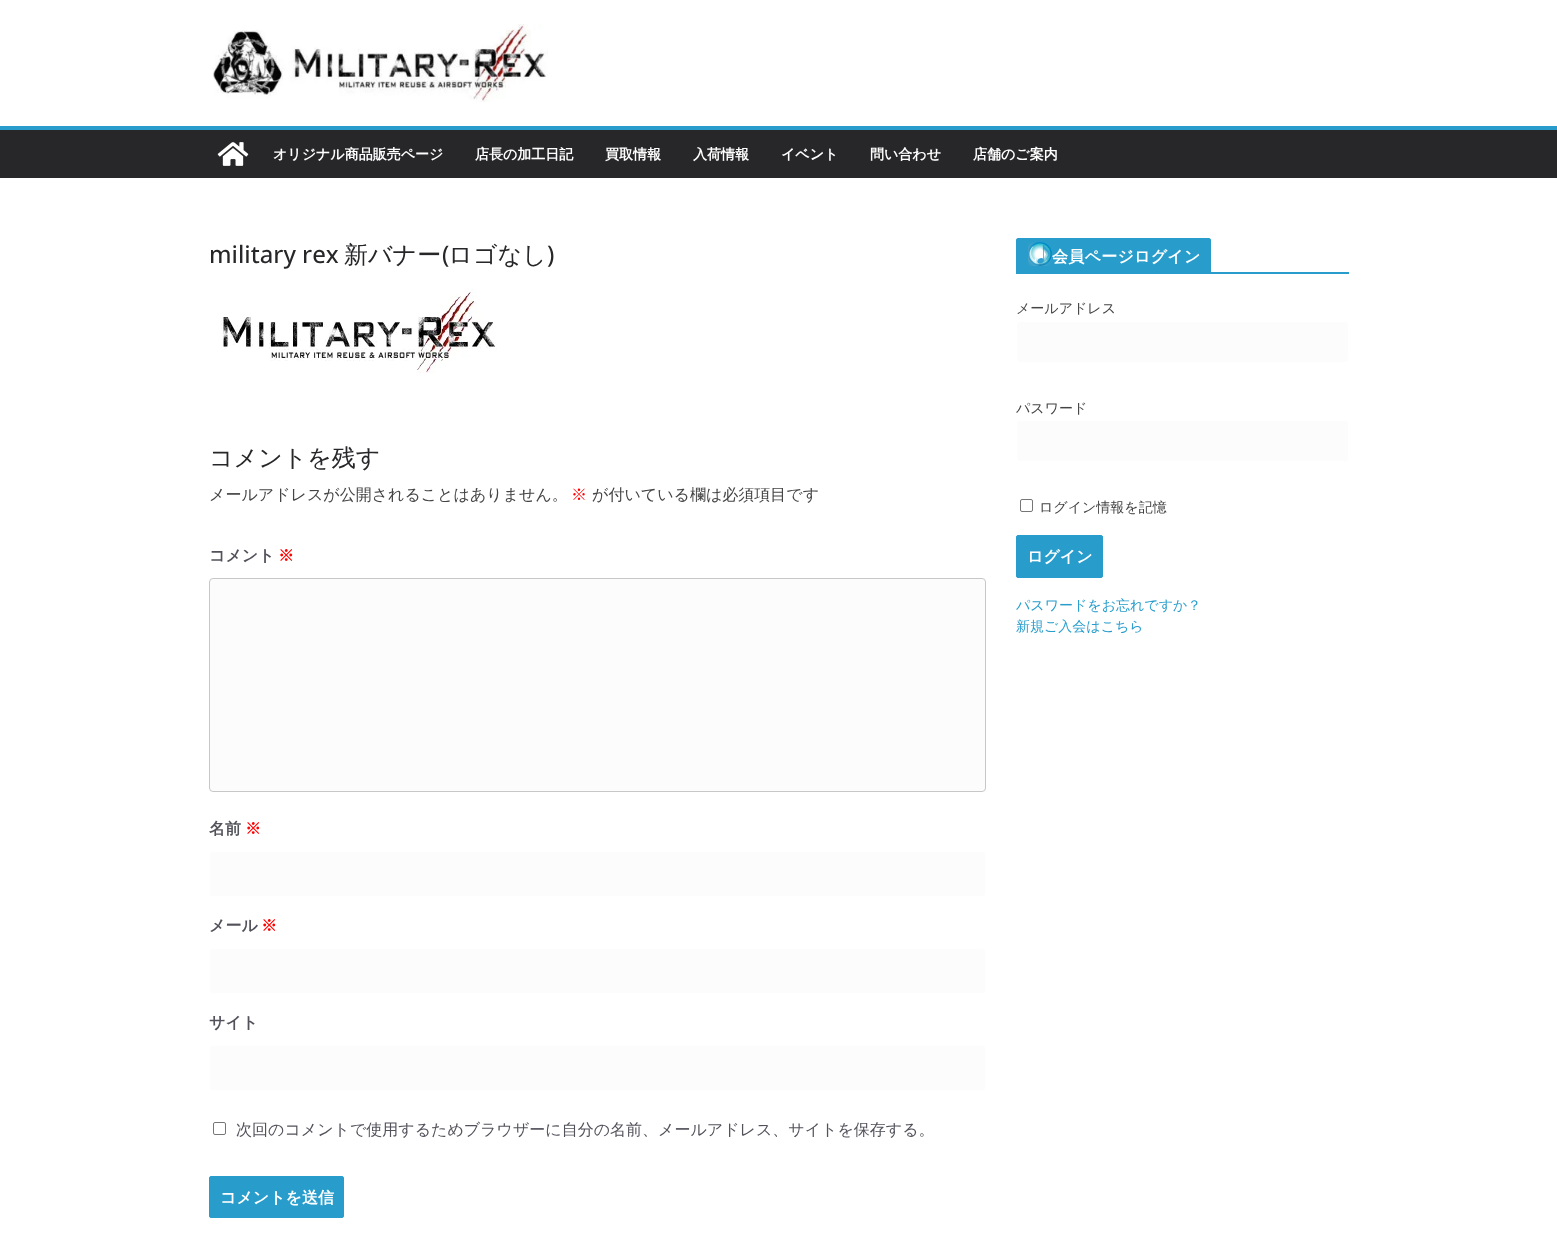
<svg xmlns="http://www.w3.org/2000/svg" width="1557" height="1256">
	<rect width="100%" height="100%" fill="#FFFFFF" />
	<image x="212" y="24" width="336" height="78" href="assets/img1.png" />
	<rect x="0" y="130" width="1557" height="48" fill="#27272A" />
	<rect x="0" y="126" width="1557" height="4" fill="#289DCC" />
	<image x="217" y="142" width="32" height="24" href="assets/img2.png" />
	<g font-family="WenQuanYi Zen Hei" font-size="14" font-weight="700" fill="#FFFFFF">
		<text x="273" y="159">オリジナル商品販売ページ</text>
		<text x="475" y="159">店長の加工日記</text>
		<text x="605" y="159">買取情報</text>
		<text x="693" y="159">入荷情報</text>
		<text x="781" y="159">イベント</text>
		<text x="870" y="159">問い合わせ</text>
		<text x="973" y="159">店舗のご案内</text>
	</g>
	<text x="209" y="263" font-family="Open Sans" font-size="24" font-weight="500" fill="#27272A">military rex</text>
	<text x="344" y="263" font-family="WenQuanYi Zen Hei" font-size="24" font-weight="500" fill="#27272A">新バナー ロゴなし</text>
	<g font-family="Open Sans" font-size="24" font-weight="500" fill="#27272A">
		<text x="442" y="263">(</text>
		<text x="547" y="263">)</text>
	</g>
	<image x="221" y="289" width="276" height="84" href="assets/img3.png" />
	<text x="209" y="466" font-family="WenQuanYi Zen Hei" font-size="24" font-weight="500" fill="#27272A">コメントを残す</text>
	<text x="209" y="500" font-family="WenQuanYi Zen Hei" font-size="16" font-weight="500" fill="#444444">メールアドレスが公開されることはありません。</text>
	<text x="571" y="500" font-family="WenQuanYi Zen Hei" font-size="16" font-weight="500" fill="#FF0000">※</text>
	<text x="592" y="500" font-family="WenQuanYi Zen Hei" font-size="16" font-weight="500" fill="#444444">が付いている欄は必須項目です</text>
	<text x="209" y="561" font-family="WenQuanYi Zen Hei" font-size="16" font-weight="700" fill="#52525B">コメント</text>
	<text x="278" y="561" font-family="WenQuanYi Zen Hei" font-size="16" font-weight="700" fill="#FF0000">※</text>
	<rect x="209.5" y="578.5" width="776" height="213" rx="3.5" fill="#FCFCFC" stroke="#C7C7C7" />
	<text x="209" y="834" font-family="WenQuanYi Zen Hei" font-size="16" font-weight="700" fill="#52525B">名前</text>
	<text x="245" y="834" font-family="WenQuanYi Zen Hei" font-size="16" font-weight="700" fill="#FF0000">※</text>
	<rect x="209.5" y="851.5" width="776" height="45" rx="3.5" fill="#FCFCFC" stroke="#FFFFFF" />
	<text x="209" y="931" font-family="WenQuanYi Zen Hei" font-size="16" font-weight="700" fill="#52525B">メール</text>
	<text x="261" y="931" font-family="WenQuanYi Zen Hei" font-size="16" font-weight="700" fill="#FF0000">※</text>
	<rect x="209.5" y="948.5" width="776" height="45" rx="3.5" fill="#FCFCFC" stroke="#FFFFFF" />
	<text x="209" y="1028" font-family="WenQuanYi Zen Hei" font-size="16" font-weight="700" fill="#52525B">サイト</text>
	<rect x="209.5" y="1045.5" width="776" height="45" rx="3.5" fill="#FCFCFC" stroke="#FFFFFF" />
	<rect x="213.5" y="1122.5" width="12" height="12" rx="1.5" fill="none" stroke="#767676" />
	<text x="236" y="1135" font-family="WenQuanYi Zen Hei" font-size="16" font-weight="500" fill="#52525B">次回のコメントで使用するためブラウザーに自分の名前、メールアドレス、サイトを保存する。</text>
	<rect x="209.5" y="1176.5" width="134" height="41" rx="1.5" fill="#289DCC" stroke="#289DCC" />
	<text x="220" y="1203" font-family="WenQuanYi Zen Hei" font-size="16" font-weight="700" fill="#FFFFFF">コメントを送信</text>
	<rect x="1016" y="272" width="333" height="2" fill="#289DCC" />
	<path d="M1018 238H1209C1210 238 1211 239 1211 240V272H1016V240C1016 239 1017 238 1018 238Z" fill="#289DCC" />
	<image x="1028" y="242" width="24" height="24" href="assets/img4.png" />
	<text x="1052" y="262" font-family="WenQuanYi Zen Hei" font-size="16" font-weight="700" letter-spacing="0.25" fill="#FFFFFF">会員ページログイン</text>
	<text x="1016" y="313" font-family="WenQuanYi Zen Hei" font-size="14" font-weight="500" fill="#444444">メールアドレス</text>
	<rect x="1016.5" y="321.5" width="332" height="41" rx="3.5" fill="#FCFCFC" stroke="#FFFFFF" />
	<text x="1016" y="413" font-family="WenQuanYi Zen Hei" font-size="14" font-weight="500" fill="#444444">パスワード</text>
	<rect x="1016.5" y="420.5" width="332" height="41" rx="3.5" fill="#FCFCFC" stroke="#FFFFFF" />
	<rect x="1020.5" y="499.5" width="12" height="12" rx="1.5" fill="none" stroke="#767676" />
	<text x="1039" y="512" font-family="WenQuanYi Zen Hei" font-size="14" font-weight="500" fill="#444444">ログイン情報を記憶</text>
	<rect x="1016.5" y="535.5" width="86" height="42" rx="1.5" fill="#289DCC" stroke="#289DCC" />
	<text x="1027" y="562" font-family="WenQuanYi Zen Hei" font-size="16" font-weight="700" fill="#FFFFFF">ログイン</text>
	<g font-family="WenQuanYi Zen Hei" font-size="14" font-weight="500" fill="#289DCC">
		<text x="1016" y="610">パスワードをお忘れですか？</text>
		<text x="1016" y="631">新規ご入会はこちら</text>
	</g>
</svg>
